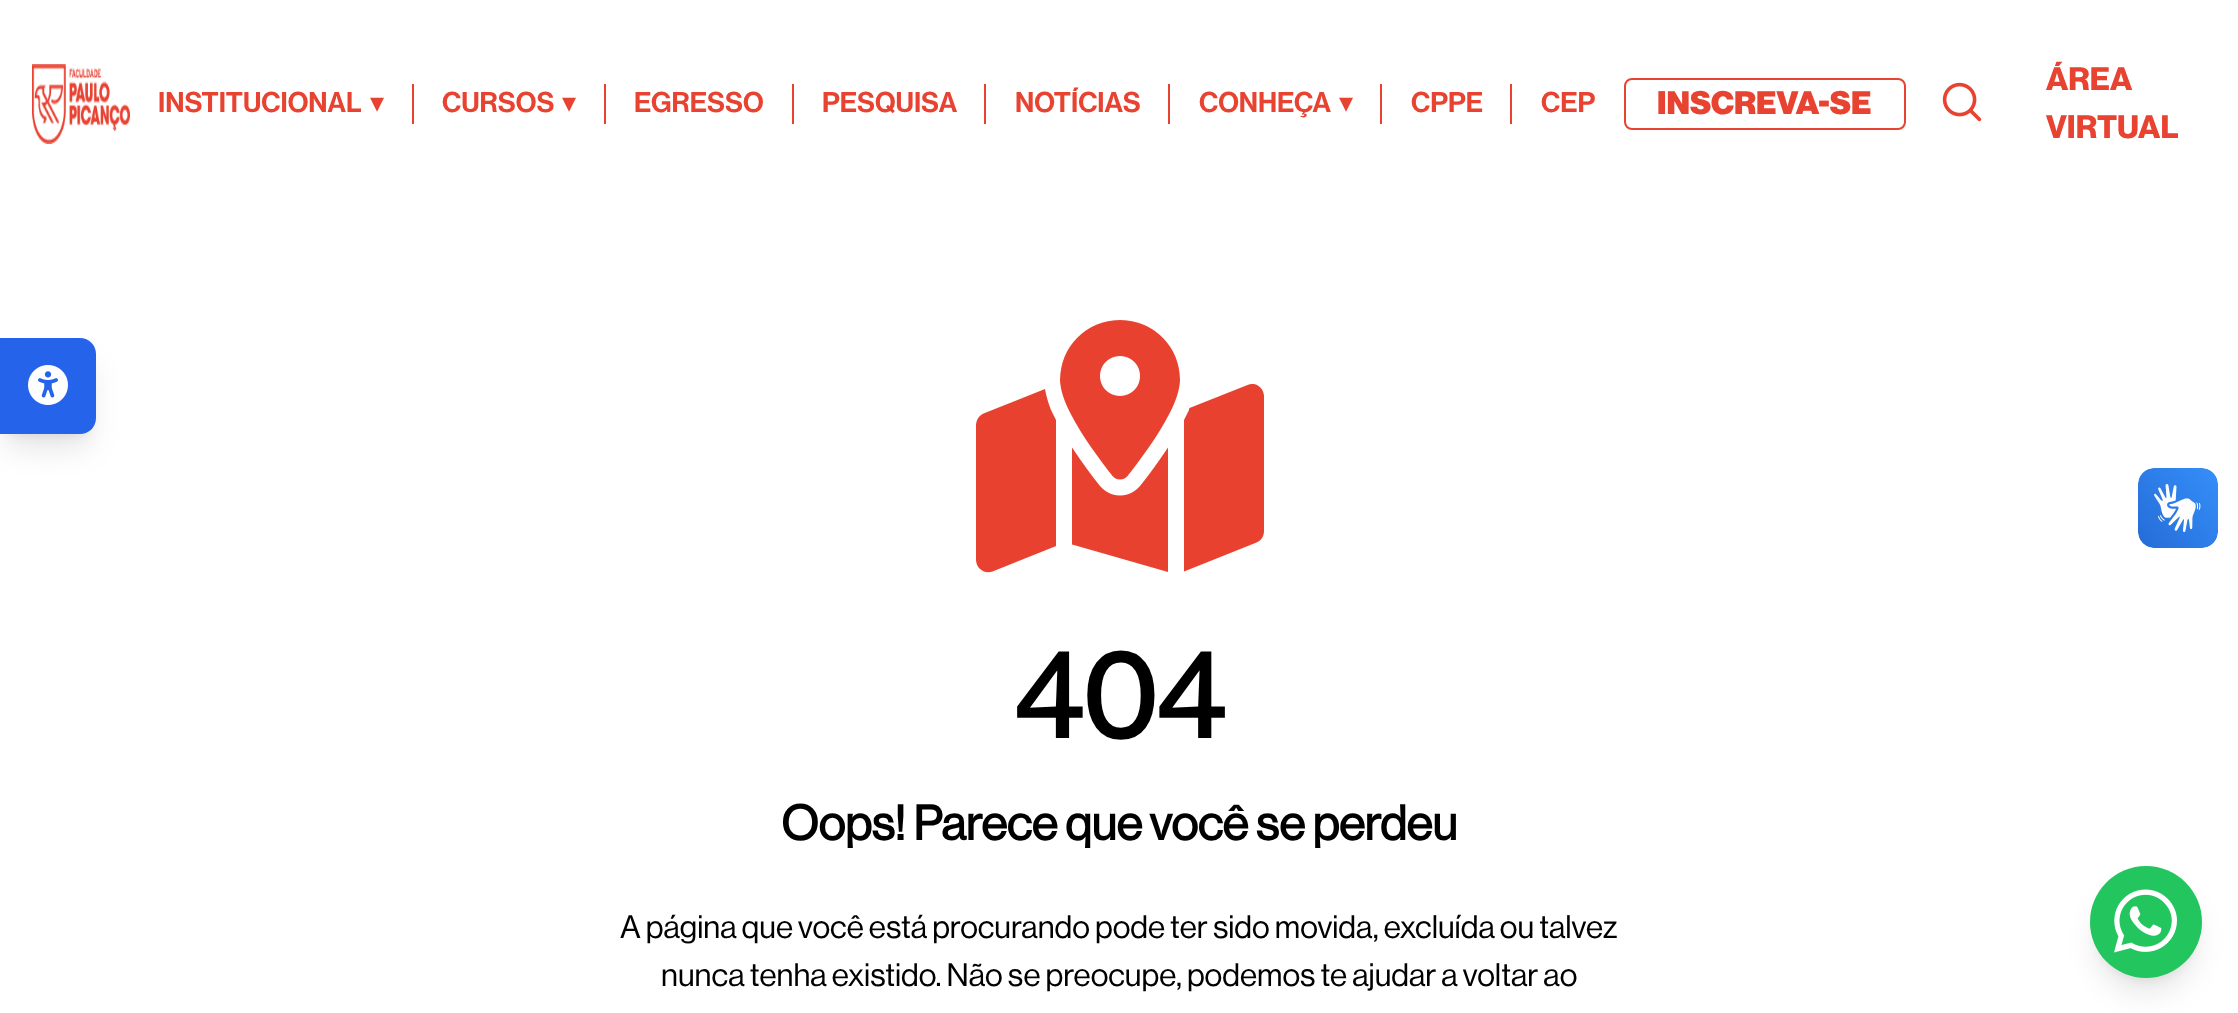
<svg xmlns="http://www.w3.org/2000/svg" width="2238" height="1013">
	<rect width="100%" height="100%" fill="#FFFFFF" />
	<image x="32" y="64" width="98" height="80" href="assets/img1.png" />
	<text x="158" y="112" font-family="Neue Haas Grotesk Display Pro" font-size="28" font-weight="600" fill="#E84231">INSTITUCIONAL</text>
	<text x="370" y="112" font-family="DejaVu Sans" font-size="28" fill="#E84231">▾</text>
	<rect x="412" y="84" width="2" height="40" fill="#E84231" />
	<text x="442" y="112" font-family="Neue Haas Grotesk Display Pro" font-size="28" font-weight="600" fill="#E84231">CURSOS</text>
	<text x="562" y="112" font-family="DejaVu Sans" font-size="28" fill="#E84231">▾</text>
	<rect x="604" y="84" width="2" height="40" fill="#E84231" />
	<text x="634" y="112" font-family="Neue Haas Grotesk Display Pro" font-size="28" font-weight="600" fill="#E84231">EGRESSO</text>
	<rect x="792" y="84" width="2" height="40" fill="#E84231" />
	<text x="822" y="112" font-family="Neue Haas Grotesk Display Pro" font-size="28" font-weight="600" fill="#E84231">PESQUISA</text>
	<rect x="984" y="84" width="2" height="40" fill="#E84231" />
	<text x="1015" y="112" font-family="Neue Haas Grotesk Display Pro" font-size="28" font-weight="600" fill="#E84231">NOTÍCIAS</text>
	<rect x="1168" y="84" width="2" height="40" fill="#E84231" />
	<text x="1199" y="112" font-family="Neue Haas Grotesk Display Pro" font-size="28" font-weight="600" fill="#E84231">CONHEÇA</text>
	<text x="1339" y="112" font-family="DejaVu Sans" font-size="28" fill="#E84231">▾</text>
	<rect x="1380" y="84" width="2" height="40" fill="#E84231" />
	<text x="1411" y="112" font-family="Neue Haas Grotesk Display Pro" font-size="28" font-weight="600" fill="#E84231">CPPE</text>
	<rect x="1510" y="84" width="2" height="40" fill="#E84231" />
	<text x="1541" y="112" font-family="Neue Haas Grotesk Display Pro" font-size="28" font-weight="600" fill="#E84231">CEP</text>
	<rect x="1625" y="79" width="280" height="50" rx="7" fill="none" stroke="#E84231" stroke-width="2" />
	<text x="1657" y="114" font-family="Neue Haas Grotesk Display Pro" font-size="32" font-weight="900" fill="#E84231">INSCREVA-SE</text>
	<image x="1942" y="82" width="40" height="40" href="assets/img2.png" />
	<g font-family="'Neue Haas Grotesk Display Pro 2'" font-size="32" font-weight="700" fill="#E84231">
		<text x="2046" y="90">ÁREA</text>
		<text x="2046" y="138">VIRTUAL</text>
	</g>
	<rect x="8" y="354" width="80" height="80" rx="8" fill="#000000" fill-opacity="0.1" filter="blur(6px)" />
	<rect x="6" y="364" width="84" height="84" rx="10" fill="#000000" fill-opacity="0.1" filter="blur(15px)" />
	<path d="M0 338H80C89 338 96 345 96 354V418C96 427 89 434 80 434H0Z" fill="#2563EB" />
	<image x="28" y="365" width="40" height="40" href="assets/img3.png" />
	<image x="2138" y="468" width="80" height="80" href="assets/img4.png" />
	<image x="976" y="320" width="288" height="253" href="assets/img5.png" />
	<text x="1014" y="738" font-family="Neue Haas Grotesk Display Pro" font-size="120" font-weight="700" fill="#000000">404</text>
	<text x="781" y="840" font-family="Neue Haas Grotesk Display Pro" font-size="48" font-weight="700" fill="#000000">Oops! Parece que você se perdeu</text>
	<g font-family="Neue Haas Grotesk Display Pro" font-size="32" fill="#000000">
		<text x="620" y="938">A página que você está procurando pode ter sido movida, excluída ou talvez</text>
		<text x="661" y="986">nunca tenha existido. Não se preocupe, podemos te ajudar a voltar ao</text>
	</g>
	<rect x="2098" y="882" width="96" height="96" rx="48" fill="#000000" fill-opacity="0.1" filter="blur(6px)" />
	<rect x="2096" y="892" width="100" height="100" rx="50" fill="#000000" fill-opacity="0.1" filter="blur(15px)" />
	<circle cx="2146" cy="922" r="56" fill="#22C55E" />
	<image x="2114" y="889" width="63" height="64" href="assets/img6.png" />
</svg>
